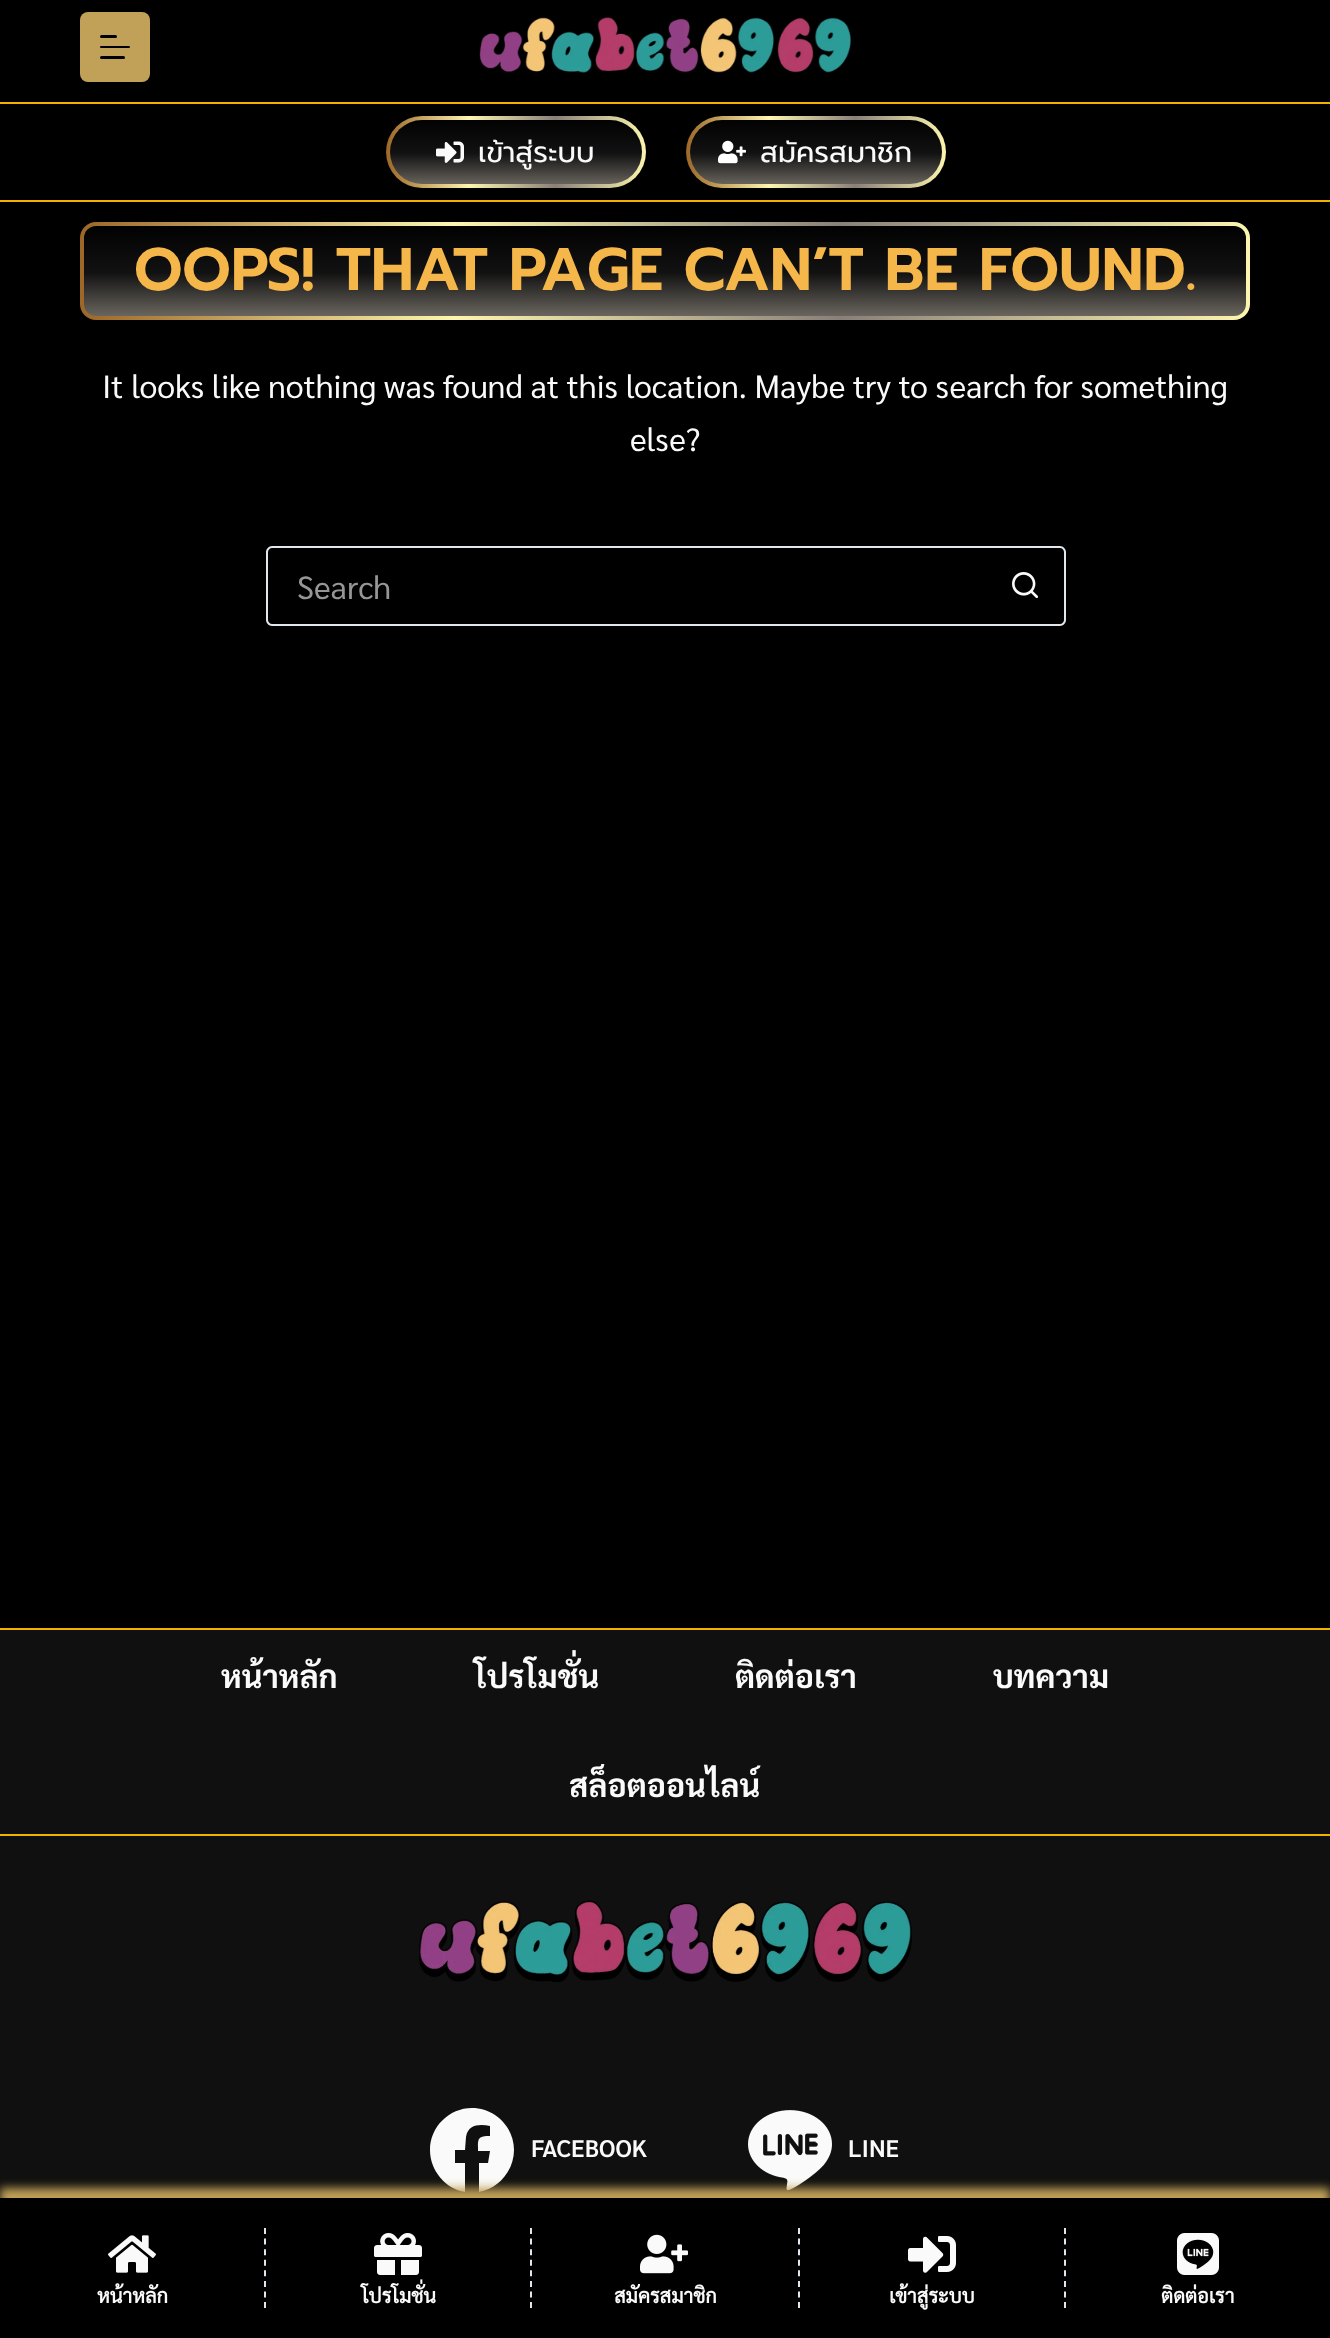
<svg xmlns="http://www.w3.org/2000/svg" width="1330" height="2338">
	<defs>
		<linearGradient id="g1" gradientUnits="userSpaceOnUse" x1="386" y1="152" x2="646" y2="152"><stop offset="0" stop-color="#9C6727" /><stop offset="0.32" stop-color="#FDF6AE" /><stop offset="0.65" stop-color="#898079" /><stop offset="1" stop-color="#FDF6AE" /></linearGradient>
		<linearGradient id="g2" gradientUnits="userSpaceOnUse" x1="516" y1="116" x2="516" y2="188"><stop offset="0" stop-color="#000000" /><stop offset="0.52" stop-color="#121212" /><stop offset="1" stop-color="#726D65" /></linearGradient>
		<linearGradient id="g3" gradientUnits="userSpaceOnUse" x1="686" y1="152" x2="946" y2="152"><stop offset="0" stop-color="#9C6727" /><stop offset="0.32" stop-color="#FDF6AE" /><stop offset="0.65" stop-color="#898079" /><stop offset="1" stop-color="#FDF6AE" /></linearGradient>
		<linearGradient id="g4" gradientUnits="userSpaceOnUse" x1="816" y1="116" x2="816" y2="188"><stop offset="0" stop-color="#000000" /><stop offset="0.52" stop-color="#121212" /><stop offset="1" stop-color="#726D65" /></linearGradient>
		<linearGradient id="g5" gradientUnits="userSpaceOnUse" x1="80" y1="271" x2="1250" y2="271"><stop offset="0" stop-color="#9C6727" /><stop offset="0.32" stop-color="#FDF6AE" /><stop offset="0.65" stop-color="#898079" /><stop offset="1" stop-color="#FDF6AE" /></linearGradient>
		<linearGradient id="g6" gradientUnits="userSpaceOnUse" x1="665" y1="222" x2="665" y2="320"><stop offset="0" stop-color="#000000" /><stop offset="0.52" stop-color="#121212" /><stop offset="1" stop-color="#726D65" /></linearGradient>
	</defs>
	<rect width="100%" height="100%" fill="#000000" />
	<rect x="80" y="12" width="70" height="70" rx="8" fill="#C1A058" />
	<rect x="100" y="35" width="17" height="3" rx="1.5" fill="#000000" />
	<rect x="100" y="46" width="30" height="2" rx="1" fill="#000000" />
	<rect x="100" y="56" width="25" height="3" rx="1.5" fill="#000000" />
	<image x="479" y="17" width="373" height="58" href="assets/img1.png" />
	<rect x="0" y="102" width="1330" height="2" fill="#F2B202" />
	<rect x="0" y="200" width="1330" height="2" fill="#F2B202" />
	<rect x="386" y="116" width="260" height="72" rx="36" fill="url(#g1)" />
	<rect x="390" y="120" width="252" height="64" rx="32" fill="url(#g2)" />
	<image x="436" y="141" width="28" height="22" href="assets/img2.png" />
	<text x="478" y="162" font-family="Prompt" font-size="28.75" fill="#FAFAFA">เข้าสู่ระบบ</text>
	<rect x="686" y="116" width="260" height="72" rx="36" fill="url(#g3)" />
	<rect x="690" y="120" width="252" height="64" rx="32" fill="url(#g4)" />
	<image x="718" y="140" width="28" height="24" href="assets/img3.png" />
	<text x="760" y="162" font-family="Prompt" font-size="28.75" fill="#FAFAFA">สมัครสมาชิก</text>
	<rect x="80" y="222" width="1170" height="98" rx="16" fill="url(#g5)" />
	<rect x="84" y="226" width="1162" height="90" rx="12" fill="url(#g6)" />
	<text x="134" y="290" font-family="Prompt" font-size="60" font-weight="600" fill="#F6B74A">OOPS! THAT PAGE CAN’T BE FOUND.</text>
	<g font-family="Sarabun" font-size="32" fill="#FAFAFA">
		<text x="102" y="398">It looks like nothing was found at this location. Maybe try to search for something</text>
		<text x="630" y="451">else?</text>
	</g>
	<path d="M272 546H986V626H272C269 626 266 623 266 620V552C266 549 269 546 272 546ZM272 548H986V624H272C270 624 268 622 268 620V552C268 550 270 548 272 548Z" fill="#E1E8ED" fill-rule="evenodd" />
	<text x="297" y="599" font-family="Sarabun" font-size="32" fill="#969696">Search</text>
	<path d="M986 546H1060C1063 546 1066 549 1066 552V620C1066 623 1063 626 1060 626H986ZM986 548H1060C1062 548 1064 550 1064 552V620C1064 622 1062 624 1060 624H986Z" fill="#E1E8ED" fill-rule="evenodd" />
	<image x="1012" y="572" width="26" height="26" href="assets/img4.png" />
	<rect x="0" y="1630" width="1330" height="204" fill="#101010" />
	<rect x="0" y="1628" width="1330" height="2" fill="#F2B202" />
	<rect x="0" y="1834" width="1330" height="2" fill="#F2B202" />
	<g font-family="Sarabun" font-size="32" font-weight="700" fill="#FAFAFA">
		<text x="221" y="1688">หน้าหลัก</text>
		<text x="474" y="1688">โปรโมชั่น</text>
		<text x="735" y="1688">ติดต่อเรา</text>
		<text x="993" y="1688">บทความ</text>
		<text x="569" y="1797">สล็อตออนไลน์</text>
	</g>
	<rect x="0" y="1836" width="1330" height="362" fill="#101010" />
	<image x="419" y="1900" width="493" height="82" href="assets/img5.png" />
	<path d="M514 2150C514 2127 495 2108 472 2108C449 2108 430 2127 430 2150C430 2171 446 2189 465 2192V2163H455V2150H465L466 2137C468 2124 480 2124 490 2126V2136C477 2136 478 2139 478 2151H490L488 2163H479V2192C498 2189 514 2171 514 2150Z" fill="#FAFAFA" />
	<text x="531" y="2157" font-family="Sarabun" font-size="24" font-weight="600" fill="#FAFAFA">FACEBOOK</text>
	<image x="748" y="2110" width="84" height="81" href="assets/img6.png" />
	<text x="848" y="2157" font-family="Sarabun" font-size="24" font-weight="600" fill="#FAFAFA">LINE</text>
	<rect x="0" y="2188" width="1330" height="140" fill="#C1A058" filter="blur(5px)" />
	<rect x="0" y="2198" width="1330" height="140" fill="#000000" />
	<image x="108" y="2235" width="48" height="38" href="assets/img7.png" />
	<text x="97" y="2303" font-family="'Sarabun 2'" font-size="20" font-weight="700" fill="#FAFAFA">หน้าหลัก</text>
	<path d="M265 2228V2308" fill="none" stroke="#E1E8ED" stroke-width="2" stroke-dasharray="6 4.58" />
	<image x="374" y="2233" width="48" height="42" href="assets/img8.png" />
	<text x="361" y="2303" font-family="'Sarabun 2'" font-size="20" font-weight="700" fill="#FAFAFA">โปรโมชั่น</text>
	<path d="M531 2228V2308" fill="none" stroke="#E1E8ED" stroke-width="2" stroke-dasharray="6 4.58" />
	<image x="640" y="2234" width="48" height="40" href="assets/img9.png" />
	<text x="614" y="2303" font-family="'Sarabun 2'" font-size="20" font-weight="700" fill="#FAFAFA">สมัครสมาชิก</text>
	<path d="M799 2228V2308" fill="none" stroke="#E1E8ED" stroke-width="2" stroke-dasharray="6 4.58" />
	<image x="908" y="2236" width="48" height="37" href="assets/img10.png" />
	<text x="889" y="2303" font-family="'Sarabun 2'" font-size="20" font-weight="700" fill="#FAFAFA">เข้าสู่ระบบ</text>
	<path d="M1065 2228V2308" fill="none" stroke="#E1E8ED" stroke-width="2" stroke-dasharray="6 4.58" />
	<image x="1177" y="2233" width="42" height="42" href="assets/img11.png" />
	<text x="1161" y="2303" font-family="'Sarabun 2'" font-size="20" font-weight="700" fill="#FAFAFA">ติดต่อเรา</text>
</svg>
